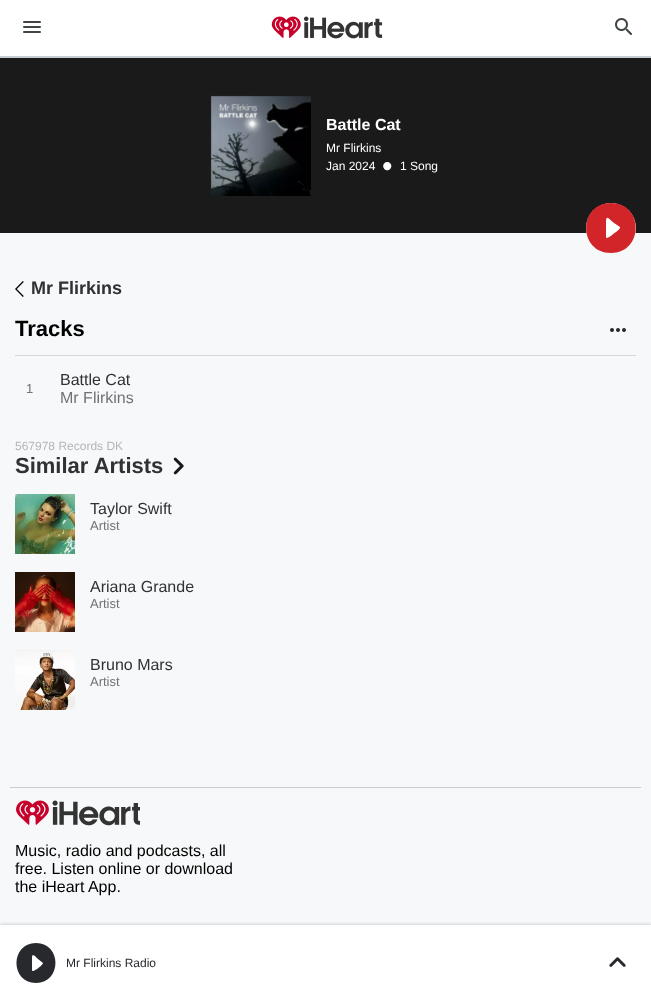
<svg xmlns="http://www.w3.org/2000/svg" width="651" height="1000">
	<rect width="100%" height="100%" fill="#F6F8F9" />
	<rect x="0" y="0" width="651" height="56" fill="#FFFFFF" />
	<rect x="0" y="56" width="651" height="2" fill="#C5CDD2" />
	<image x="23" y="21" width="18" height="12" href="assets/img1.png" />
	<image x="271" y="16" width="112" height="23" href="assets/img2.png" />
	<image x="615" y="18" width="17" height="17" href="assets/img3.png" />
	<rect x="0" y="58" width="651" height="175" fill="#1A1A1A" />
	<image x="210" y="95" width="101" height="101" href="assets/img4.png" />
	<text x="326" y="130" font-family="Liberation Sans" font-size="16" font-weight="700" fill="#FFFFFF">Battle Cat</text>
	<g font-family="Liberation Sans" font-size="12" fill="#FFFFFF">
		<text x="326" y="152">Mr Flirkins</text>
		<text x="326" y="170">Jan 2024</text>
	</g>
	<text x="382" y="176" font-family="Liberation Sans" font-size="30" fill="#FFFFFF">•</text>
	<text x="400" y="170" font-family="Liberation Sans" font-size="12" fill="#FFFFFF">1 Song</text>
	<circle cx="611" cy="228" r="25" fill="#FFFFFF" />
	<path d="M611 203C578 203 578 253 611 253C644 253 644 203 611 203ZM606 237V222C606 214 609 219 614 223L620 227C621 229 613 234 612 235C612 235 606 240 606 237Z" fill="#D2252A" />
	<image x="15" y="281" width="9" height="16" href="assets/img5.png" />
	<text x="31" y="294" font-family="Liberation Sans" font-size="18" font-weight="700" fill="#2F3133">Mr Flirkins</text>
	<rect x="15" y="355" width="621" height="1" fill="#D7D7D7" />
	<text x="15" y="336" font-family="Liberation Sans" font-size="22" font-weight="700" fill="#000000">Tracks</text>
	<image x="610" y="328" width="16" height="4" href="assets/img6.png" />
	<text x="26" y="393" font-family="Liberation Sans" font-size="13" fill="#717277">1</text>
	<text x="60" y="385" font-family="Liberation Sans" font-size="16" fill="#2F3133">Battle Cat</text>
	<text x="60" y="403" font-family="Liberation Sans" font-size="16" fill="#717277">Mr Flirkins</text>
	<text x="15" y="450" font-family="Liberation Sans" font-size="12" fill="#B4B5B8">567978 Records DK</text>
	<text x="15" y="473" font-family="Liberation Sans" font-size="22" font-weight="700" fill="#2F3133">Similar Artists</text>
	<image x="173" y="457" width="11" height="18" href="assets/img7.png" />
	<image x="15" y="494" width="60" height="60" href="assets/img8.png" />
	<text x="90" y="514" font-family="Liberation Sans" font-size="16" fill="#2F3133">Taylor Swift</text>
	<text x="90" y="530" font-family="Liberation Sans" font-size="13" fill="#717277">Artist</text>
	<image x="15" y="572" width="60" height="60" href="assets/img9.png" />
	<text x="90" y="592" font-family="Liberation Sans" font-size="16" fill="#2F3133">Ariana Grande</text>
	<text x="90" y="608" font-family="Liberation Sans" font-size="13" fill="#717277">Artist</text>
	<image x="15" y="650" width="60" height="60" href="assets/img10.png" />
	<text x="90" y="670" font-family="Liberation Sans" font-size="16" fill="#2F3133">Bruno Mars</text>
	<text x="90" y="686" font-family="Liberation Sans" font-size="13" fill="#717277">Artist</text>
	<rect x="10" y="787" width="631" height="1" fill="#C5CDD2" />
	<image x="16" y="800" width="124" height="26" href="assets/img11.png" />
	<g font-family="Liberation Sans" font-size="16" fill="#000000">
		<text x="15" y="856">Music, radio and podcasts, all</text>
		<text x="15" y="874">free. Listen online or download</text>
		<text x="15" y="892">the iHeart App.</text>
	</g>
	<rect x="0" y="924" width="651" height="75" fill="#000000" fill-opacity="0.15" filter="blur(1.5px)" />
	<rect x="0" y="925" width="651" height="75" fill="#FFFFFF" />
	<path d="M36 943C10 943 10 983 36 983C62 983 62 943 36 943ZM32 970V958C32 952 35 956 38 959L43 963C44 964 32 974 32 970Z" fill="#27292D" />
	<text x="66" y="967" font-family="Liberation Sans" font-size="12" fill="#27292D">Mr Flirkins Radio</text>
	<image x="609" y="957" width="17" height="10" href="assets/img12.png" />
</svg>
